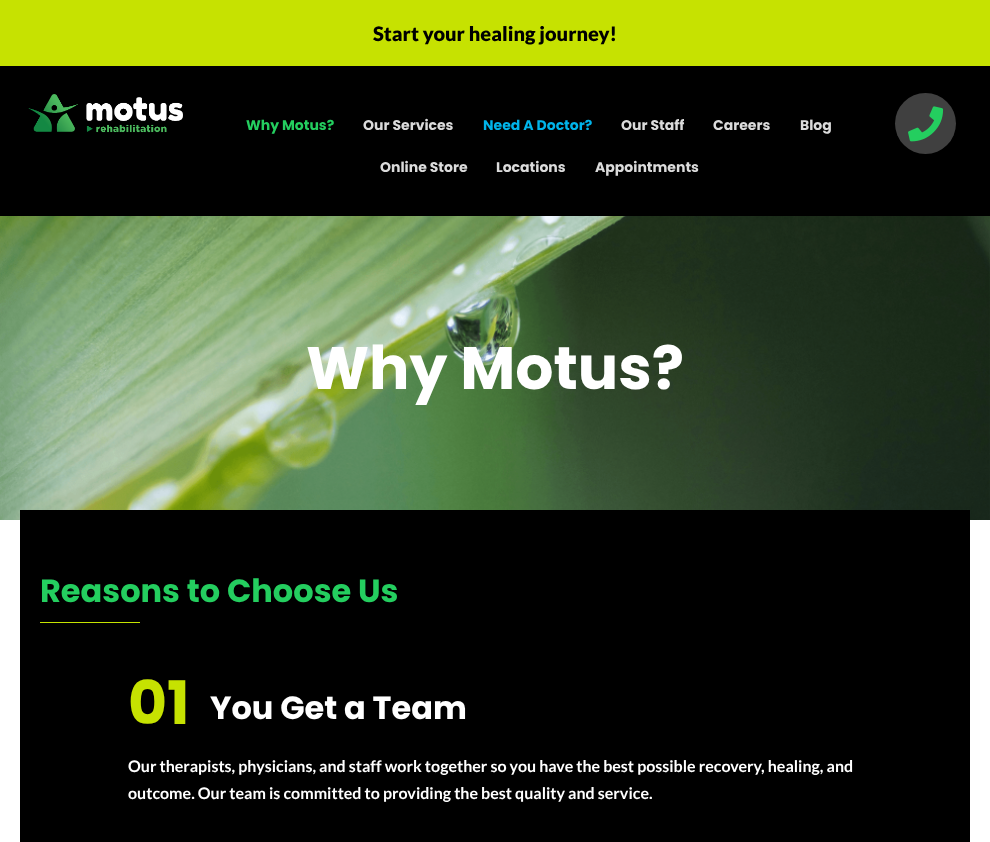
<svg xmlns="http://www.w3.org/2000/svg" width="990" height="842">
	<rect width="100%" height="100%" fill="#FFFFFF" />
	<rect x="0" y="0" width="990" height="66" fill="#C6E201" />
	<text x="373" y="41" font-family="Lato" font-size="20" font-weight="900" fill="#000000">Start your healing journey!</text>
	<rect x="0" y="66" width="990" height="150" fill="#000000" />
	<image x="28" y="94" width="155" height="39" href="assets/img1.png" />
	<circle cx="925.5" cy="123.5" r="30.5" fill="#404040" />
	<image x="908" y="106" width="36" height="36" href="assets/img2.png" />
	<text x="246" y="130" font-family="Poppins" font-size="14" font-weight="700" fill="#24CE5F">Why Motus?</text>
	<text x="363" y="130" font-family="Poppins" font-size="14" font-weight="700" fill="#DBDBDB">Our Services</text>
	<text x="483" y="130" font-family="Poppins" font-size="14" font-weight="700" fill="#00B4EA">Need A Doctor?</text>
	<g font-family="Poppins" font-size="14" font-weight="700" fill="#DBDBDB">
		<text x="621" y="130">Our Staff</text>
		<text x="713" y="130">Careers</text>
		<text x="800" y="130">Blog</text>
		<text x="380" y="172">Online Store</text>
		<text x="496" y="172">Locations</text>
		<text x="595" y="172">Appointments</text>
	</g>
	<image x="0" y="216" width="990" height="304" href="assets/img3.png" />
	<text x="306" y="389" font-family="Poppins" font-size="60" font-weight="700" fill="#FFFFFF">Why Motus?</text>
	<rect x="20" y="510" width="950" height="332" fill="#000000" />
	<text x="40" y="602" font-family="Poppins" font-size="32" font-weight="700" fill="#24CE5F">Reasons to Choose Us</text>
	<rect x="40" y="622" width="100" height="1" fill="#C5E300" />
	<text x="128" y="724" font-family="Poppins" font-size="60" font-weight="700" fill="#C6E201">01</text>
	<text x="210" y="719" font-family="Poppins" font-size="32" font-weight="700" fill="#FFFFFF">You Get a Team</text>
	<g font-family="Lato" font-size="16" font-weight="700" fill="#FFFFFF">
		<text x="128" y="772">Our therapists, physicians, and staff work together so you have the best possible recovery, healing, and</text>
		<text x="128" y="799">outcome. Our team is committed to providing the best quality and service.</text>
	</g>
</svg>
